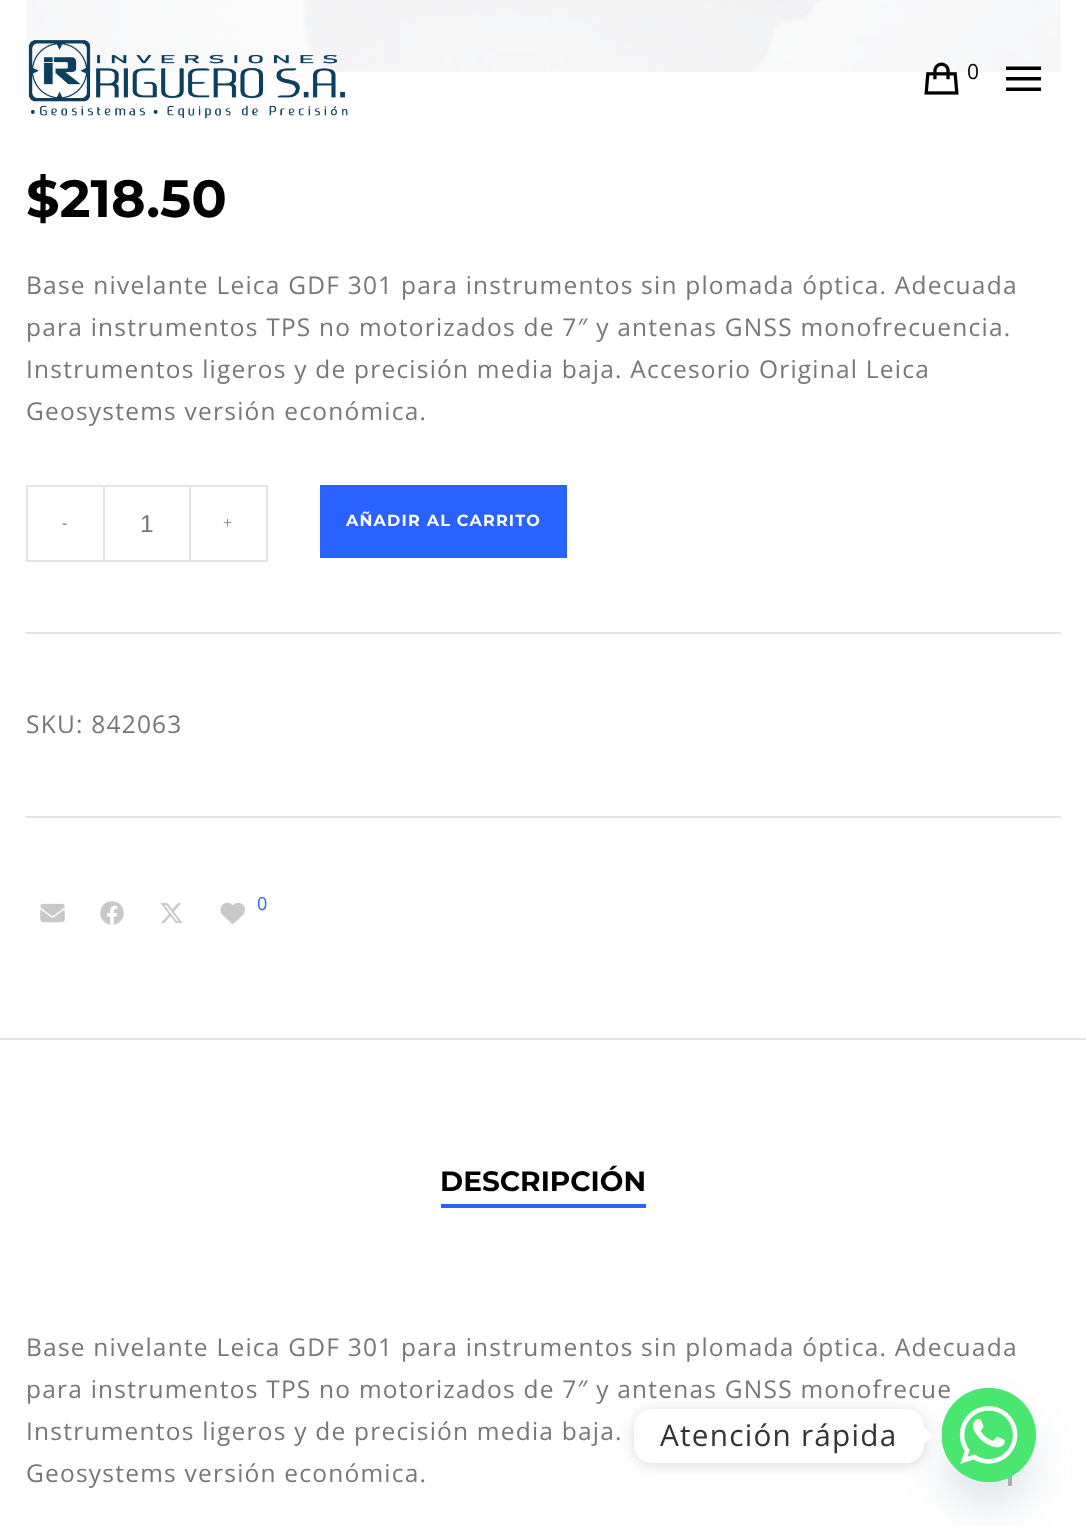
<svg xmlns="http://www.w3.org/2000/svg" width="1086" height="1526">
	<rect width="100%" height="100%" fill="#FFFFFF" />
	<image x="26" y="0" width="1035" height="72" href="assets/img3.png" />
	<image x="28" y="40" width="320" height="79" href="assets/img1.png" />
	<image x="924" y="62" width="35" height="33" href="assets/img2.png" />
	<text x="967" y="79" font-family="Open Sans" font-size="21" letter-spacing="1.22" fill="#000000">0</text>
	<path d="M1006 77H1041V80.5H1006ZM1006 66.5H1041V70H1006ZM1006 87.5H1041V91H1006Z" fill="#000000" />
	<text x="26" y="217" font-family="Montserrat" font-size="52.5" font-weight="100" fill="#000000">$218.50</text>
	<g font-family="Open Sans" font-size="24.5" letter-spacing="1.22" fill="#777777">
		<text x="26" y="294">Base nivelante Leica GDF 301 para instrumentos sin plomada óptica. Adecuada</text>
		<text x="26" y="336">para instrumentos TPS no motorizados de 7″ y antenas GNSS monofrecuencia.</text>
		<text x="26" y="378">Instrumentos ligeros y de precisión media baja. Accesorio Original Leica</text>
		<text x="26" y="420">Geosystems versión económica.</text>
	</g>
	<rect x="26" y="485" width="77" height="2" fill="#E4E4E4" />
	<rect x="26" y="560" width="77" height="2" fill="#E4E4E4" />
	<rect x="26" y="485" width="2" height="77" fill="#E4E4E4" />
	<text x="62" y="528" font-family="Liberation Serif" font-size="16" letter-spacing="1.22" fill="#777777">-</text>
	<rect x="104" y="486" width="86" height="75" fill="none" stroke="#E4E4E4" stroke-width="2" />
	<text x="140" y="532" font-family="Liberation Sans" font-size="24.5" fill="#777777">1</text>
	<rect x="191" y="485" width="77" height="2" fill="#E4E4E4" />
	<rect x="266" y="485" width="2" height="77" fill="#E4E4E4" />
	<rect x="191" y="560" width="77" height="2" fill="#E4E4E4" />
	<text x="223" y="528" font-family="Liberation Serif" font-size="16" letter-spacing="1.22" fill="#777777">+</text>
	<rect x="320" y="485" width="247" height="73" fill="#2962FF" />
	<text x="346" y="526" font-family="Montserrat" font-size="16" font-weight="100" letter-spacing="1.22" fill="#FFFFFF">AÑADIR AL CARRITO</text>
	<rect x="26" y="632" width="1035" height="2" fill="#E4E4E4" />
	<text x="26" y="733" font-family="Open Sans" font-size="24.5" letter-spacing="1.22" fill="#777777">SKU: 842063</text>
	<rect x="26" y="816" width="1035" height="2" fill="#E4E4E4" />
	<image x="40" y="903" width="25" height="20" href="assets/img4.png" />
	<image x="100" y="901" width="24" height="24" href="assets/img5.png" />
	<image x="160" y="903" width="23" height="20" href="assets/img6.png" />
	<image x="220" y="902" width="25" height="22" href="assets/img7.png" />
	<text x="257" y="910" font-family="Open Sans" font-size="18" letter-spacing="1.22" fill="#2962FF">0</text>
	<rect x="0" y="1038" width="1086" height="2" fill="#E4E4E4" />
	<text x="440" y="1191" font-family="Montserrat" font-size="28" font-weight="100" fill="#000000">DESCRIPCIÓN</text>
	<rect x="441" y="1204" width="205" height="4" fill="#2962FF" />
	<g font-family="Open Sans" font-size="24.5" letter-spacing="1.22" fill="#777777">
		<text x="26" y="1356">Base nivelante Leica GDF 301 para instrumentos sin plomada óptica. Adecuada</text>
		<text x="26" y="1398">para instrumentos TPS no motorizados de 7″ y antenas GNSS monofrecue</text>
		<text x="26" y="1440">Instrumentos ligeros y de precisión media baja.</text>
		<text x="26" y="1482">Geosystems versión económica.</text>
	</g>
	<path d="M1012 1486V1452L1023 1463L1026 1460L1010 1444L994 1460L996 1463L1008 1452V1486Z" fill="#BABABA" />
	<rect x="942" y="1416" width="94" height="94" rx="47" fill="#49687E" fill-opacity="0.16" filter="blur(21px)" />
	<circle cx="989" cy="1435" r="47" fill="#49E670" />
	<image x="942" y="1388" width="94" height="94" href="assets/img8.png" />
	<rect x="634" y="1411" width="290" height="54" rx="18" fill="#000000" fill-opacity="0.15" filter="blur(7px)" />
	<rect x="634" y="1409" width="290" height="54" rx="18" fill="#FFFFFF" />
	<text x="660" y="1446" font-family="Open Sans" font-size="29.75" letter-spacing="1.22" fill="#333333">Atención rápida</text>
	<path d="M924 1444.5V1427L933 1436Z" fill="#FFFFFF" />
</svg>
